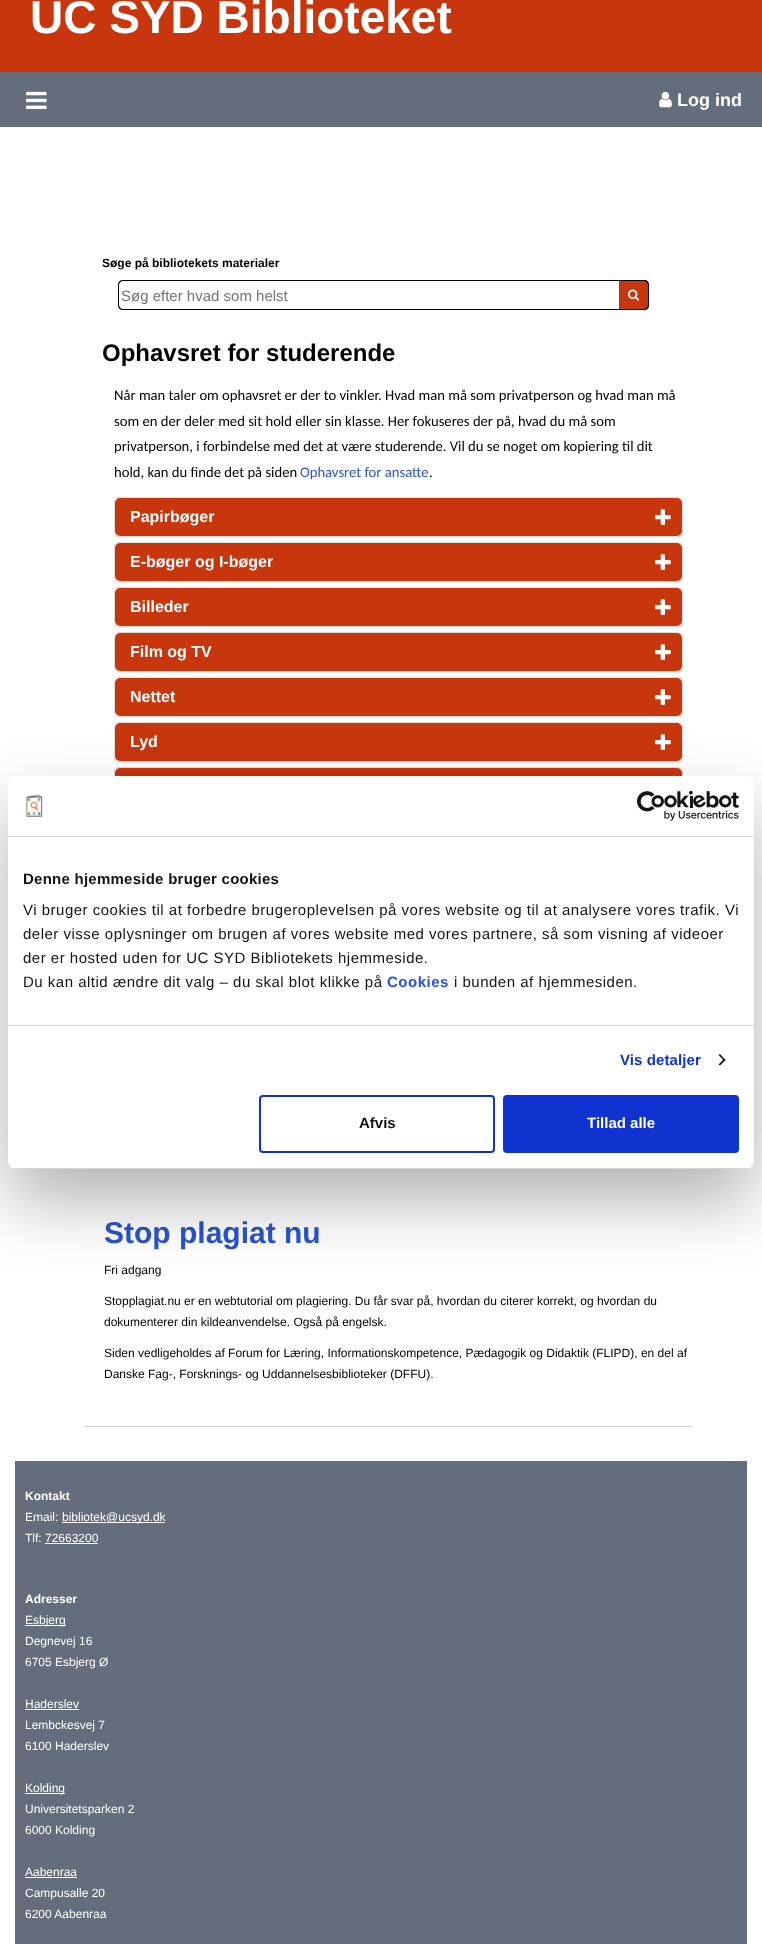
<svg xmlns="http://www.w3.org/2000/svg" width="762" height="1944">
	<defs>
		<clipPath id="clip1"><rect x="8" y="776" width="746" height="393" rx="8" /></clipPath>
	</defs>
	<rect width="100%" height="100%" fill="#FFFFFF" />
	<rect x="0" y="0" width="762" height="72" fill="#C8360E" />
	<text x="30" y="33" font-family="Liberation Sans" font-size="46" font-weight="700" fill="#FFFFFF">UC SYD Biblioteket</text>
	<rect x="0" y="72" width="762" height="55" fill="#656D7D" />
	<image x="26" y="91" width="21" height="18" href="assets/img1.png" />
	<image x="659" y="91" width="13" height="17" href="assets/img2.png" />
	<text x="677" y="106" font-family="Liberation Sans" font-size="18" font-weight="700" fill="#FFFFFF">Log ind</text>
	<text x="102" y="267" font-family="Liberation Sans" font-size="12" font-weight="700" fill="#000000">Søge på bibliotekets materialer</text>
	<path d="M123 280H619V310H123C120 310 118 308 118 305V285C118 282 120 280 123 280ZM123 281H619V309H123C121 309 119 307 119 305V285C119 283 121 281 123 281Z" fill="#000000" fill-rule="evenodd" />
	<text x="121" y="301" font-family="Liberation Sans" font-size="15" fill="#757575">Søg efter hvad som helst</text>
	<path d="M619 280H644C647 280 649 282 649 285V305C649 308 647 310 644 310H619Z" fill="#C8360E" />
	<path d="M619 280H644C647 280 649 282 649 285V305C649 308 647 310 644 310H619ZM619 281H644C646 281 648 283 648 285V305C648 307 646 309 644 309H619Z" fill="#000000" fill-rule="evenodd" />
	<image x="628" y="289" width="12" height="12" href="assets/img3.png" />
	<text x="102" y="361" font-family="Liberation Sans" font-size="24" font-weight="700" fill="#000000">Ophavsret for studerende</text>
	<g font-family="Carlito" font-size="14.65" fill="#000000">
		<text x="114" y="400">Når man taler om ophavsret er der to vinkler. Hvad man må som privatperson og hvad man må</text>
		<text x="114" y="426">som en der deler med sit hold eller sin klasse. Her fokuseres der på, hvad du må som</text>
		<text x="114" y="451">privatperson, i forbindelse med det at være studerende. Vil du se noget om kopiering til dit</text>
		<text x="114" y="477">hold, kan du finde det på siden</text>
	</g>
	<text x="300" y="477" font-family="Carlito" font-size="14.65" fill="#2954D1">Ophavsret for ansatte</text>
	<text x="429" y="477" font-family="Carlito" font-size="14.65" fill="#000000">.</text>
	<rect x="114" y="498" width="569" height="40" rx="4" fill="#000000" fill-opacity="0.05" filter="blur(0.5px)" />
	<rect x="114.5" y="497.5" width="568" height="39" rx="3.5" fill="#FFFFFF" stroke="#DDDDDD" />
	<rect x="115" y="498" width="567" height="38" rx="5" fill="#C8360E" />
	<text x="130" y="522" font-family="Liberation Sans" font-size="16" font-weight="700" fill="#FFFFFF">Papirbøger</text>
	<image x="655" y="509" width="16" height="16" href="assets/img4.png" />
	<rect x="114" y="543" width="569" height="40" rx="4" fill="#000000" fill-opacity="0.05" filter="blur(0.5px)" />
	<rect x="114.5" y="542.5" width="568" height="39" rx="3.5" fill="#FFFFFF" stroke="#DDDDDD" />
	<rect x="115" y="543" width="567" height="38" rx="5" fill="#C8360E" />
	<text x="130" y="567" font-family="Liberation Sans" font-size="16" font-weight="700" fill="#FFFFFF">E-bøger og I-bøger</text>
	<image x="655" y="554" width="16" height="16" href="assets/img4.png" />
	<rect x="114" y="588" width="569" height="40" rx="4" fill="#000000" fill-opacity="0.05" filter="blur(0.5px)" />
	<rect x="114.5" y="587.5" width="568" height="39" rx="3.5" fill="#FFFFFF" stroke="#DDDDDD" />
	<rect x="115" y="588" width="567" height="38" rx="5" fill="#C8360E" />
	<text x="130" y="612" font-family="Liberation Sans" font-size="16" font-weight="700" fill="#FFFFFF">Billeder</text>
	<image x="655" y="599" width="16" height="16" href="assets/img4.png" />
	<rect x="114" y="633" width="569" height="40" rx="4" fill="#000000" fill-opacity="0.05" filter="blur(0.5px)" />
	<rect x="114.5" y="632.5" width="568" height="39" rx="3.5" fill="#FFFFFF" stroke="#DDDDDD" />
	<rect x="115" y="633" width="567" height="38" rx="5" fill="#C8360E" />
	<text x="130" y="657" font-family="Liberation Sans" font-size="16" font-weight="700" fill="#FFFFFF">Film og TV</text>
	<image x="655" y="644" width="16" height="16" href="assets/img4.png" />
	<rect x="114" y="678" width="569" height="40" rx="4" fill="#000000" fill-opacity="0.05" filter="blur(0.5px)" />
	<rect x="114.5" y="677.5" width="568" height="39" rx="3.5" fill="#FFFFFF" stroke="#DDDDDD" />
	<rect x="115" y="678" width="567" height="38" rx="5" fill="#C8360E" />
	<text x="130" y="702" font-family="Liberation Sans" font-size="16" font-weight="700" fill="#FFFFFF">Nettet</text>
	<image x="655" y="689" width="16" height="16" href="assets/img4.png" />
	<rect x="114" y="723" width="569" height="40" rx="4" fill="#000000" fill-opacity="0.05" filter="blur(0.5px)" />
	<rect x="114.5" y="722.5" width="568" height="39" rx="3.5" fill="#FFFFFF" stroke="#DDDDDD" />
	<rect x="115" y="723" width="567" height="38" rx="5" fill="#C8360E" />
	<text x="130" y="747" font-family="Liberation Sans" font-size="16" font-weight="700" fill="#FFFFFF">Lyd</text>
	<image x="655" y="734" width="16" height="16" href="assets/img4.png" />
	<rect x="114.5" y="767.5" width="568" height="39" rx="3.5" fill="none" stroke="#DDDDDD" />
	<rect x="115" y="768" width="567" height="38" rx="5" fill="#C8360E" />
	<rect x="84" y="1426" width="609" height="1" fill="#D3D3D3" />
	<text x="104" y="1243" font-family="Liberation Sans" font-size="30" font-weight="700" fill="#2954D1">Stop plagiat nu</text>
	<g font-family="Liberation Sans" font-size="12" fill="#000000">
		<text x="104" y="1274">Fri adgang</text>
		<text x="104" y="1305">Stopplagiat.nu er en webtutorial om plagiering. Du får svar på, hvordan du citerer korrekt, og hvordan du</text>
		<text x="104" y="1326">dokumenterer din kildeanvendelse. Også på engelsk.</text>
		<text x="104" y="1357">Siden vedligeholdes af Forum for Læring, Informationskompetence, Pædagogik og Didaktik (FLIPD), en del af</text>
		<text x="104" y="1378">Danske Fag-, Forsknings- og Uddannelsesbiblioteker (DFFU).</text>
	</g>
	<rect x="8" y="808" width="746" height="393" rx="8" fill="#000000" fill-opacity="0.3" filter="blur(34px)" />
	<rect x="8" y="776" width="746" height="393" rx="8" fill="#FFFFFF" />
	<rect x="8" y="836" width="746" height="1" fill="#D6D6D6" />
	<image x="26" y="794" width="17" height="23" href="assets/img5.png" />
	<image x="637" y="791" width="102" height="30" href="assets/img6.png" />
	<rect x="8" y="1025" width="746" height="1" fill="#D6D6D6" />
	<text x="23" y="884" font-family="Liberation Sans" font-size="15" font-weight="700" letter-spacing="0.25" fill="#141414">Denne hjemmeside bruger cookies</text>
	<g font-family="Liberation Sans" font-size="15" letter-spacing="0.5" fill="#141414">
		<text x="23" y="915">Vi bruger cookies til at forbedre brugeroplevelsen på vores website og til at analysere vores trafik. Vi</text>
		<text x="23" y="939">deler visse oplysninger om brugen af vores website med vores partnere, så som visning af videoer</text>
		<text x="23" y="963">der er hosted uden for UC SYD Bibliotekets hjemmeside.</text>
		<text x="23" y="987">Du kan altid ændre dit valg – du skal blot klikke på</text>
	</g>
	<text x="387" y="987" font-family="Liberation Sans" font-size="15" font-weight="700" letter-spacing="0.5" fill="#2A4EEF">Cookies</text>
	<text x="454" y="987" font-family="Liberation Sans" font-size="15" letter-spacing="0.5" fill="#141414">i bunden af hjemmesiden.</text>
	<text x="620" y="1065" font-family="Liberation Sans" font-size="15" font-weight="700" letter-spacing="0.1" fill="#1032CF">Vis detaljer</text>
	<path d="M720 1054L725.5 1060L724.5 1061L718.5 1055Z" fill="#141414" />
	<path d="M724.5 1058.5L725.5 1060L720 1065.5L718.5 1064.5Z" fill="#141414" />
	<g clip-path="url(#clip1)">
		<rect x="8" y="1168" width="746" height="1" fill="#D6D6D6" />
	</g>
	<rect x="260" y="1096" width="234" height="56" rx="3" fill="none" stroke="#1032CF" stroke-width="2" />
	<text x="359" y="1128" font-family="Liberation Sans" font-size="15" font-weight="700" fill="#141414">Afvis</text>
	<rect x="504" y="1096" width="234" height="56" rx="3" fill="#1032CF" stroke="#1032CF" stroke-width="2" />
	<text x="587" y="1128" font-family="Liberation Sans" font-size="15" font-weight="700" fill="#FFFFFF">Tillad alle</text>
	<rect x="15" y="1461" width="732" height="483" fill="#656D7D" />
	<text x="25" y="1500" font-family="Liberation Sans" font-size="12" font-weight="700" fill="#FFFFFF">Kontakt</text>
	<text x="25" y="1521" font-family="Liberation Sans" font-size="12" fill="#FFFFFF">Email:</text>
	<rect x="62" y="1522" width="103" height="1" fill="#FFFFFF" />
	<g font-family="Liberation Sans" font-size="12" fill="#FFFFFF">
		<text x="62" y="1521">bibliotek@ucsyd.dk</text>
		<text x="25" y="1542">Tlf: 72663200</text>
	</g>
	<rect x="45" y="1543" width="53" height="1" fill="#FFFFFF" />
	<text x="25" y="1603" font-family="Liberation Sans" font-size="12" font-weight="700" fill="#FFFFFF">Adresser</text>
	<rect x="25" y="1625" width="41" height="1" fill="#FFFFFF" />
	<g font-family="Liberation Sans" font-size="12" fill="#FFFFFF">
		<text x="25" y="1624">Esbjerg</text>
		<text x="25" y="1645">Degnevej 16</text>
		<text x="25" y="1666">6705 Esbjerg Ø</text>
		<text x="25" y="1708">Haderslev</text>
	</g>
	<rect x="25" y="1709" width="54" height="1" fill="#FFFFFF" />
	<g font-family="Liberation Sans" font-size="12" fill="#FFFFFF">
		<text x="25" y="1729">Lembckesvej 7</text>
		<text x="25" y="1750">6100 Haderslev</text>
	</g>
	<rect x="25" y="1793" width="40" height="1" fill="#FFFFFF" />
	<g font-family="Liberation Sans" font-size="12" fill="#FFFFFF">
		<text x="25" y="1792">Kolding</text>
		<text x="25" y="1813">Universitetsparken 2</text>
		<text x="25" y="1834">6000 Kolding</text>
		<text x="25" y="1876">Aabenraa</text>
	</g>
	<rect x="25" y="1877" width="52" height="1" fill="#FFFFFF" />
	<g font-family="Liberation Sans" font-size="12" fill="#FFFFFF">
		<text x="25" y="1897">Campusalle 20</text>
		<text x="25" y="1918">6200 Aabenraa</text>
	</g>
</svg>
